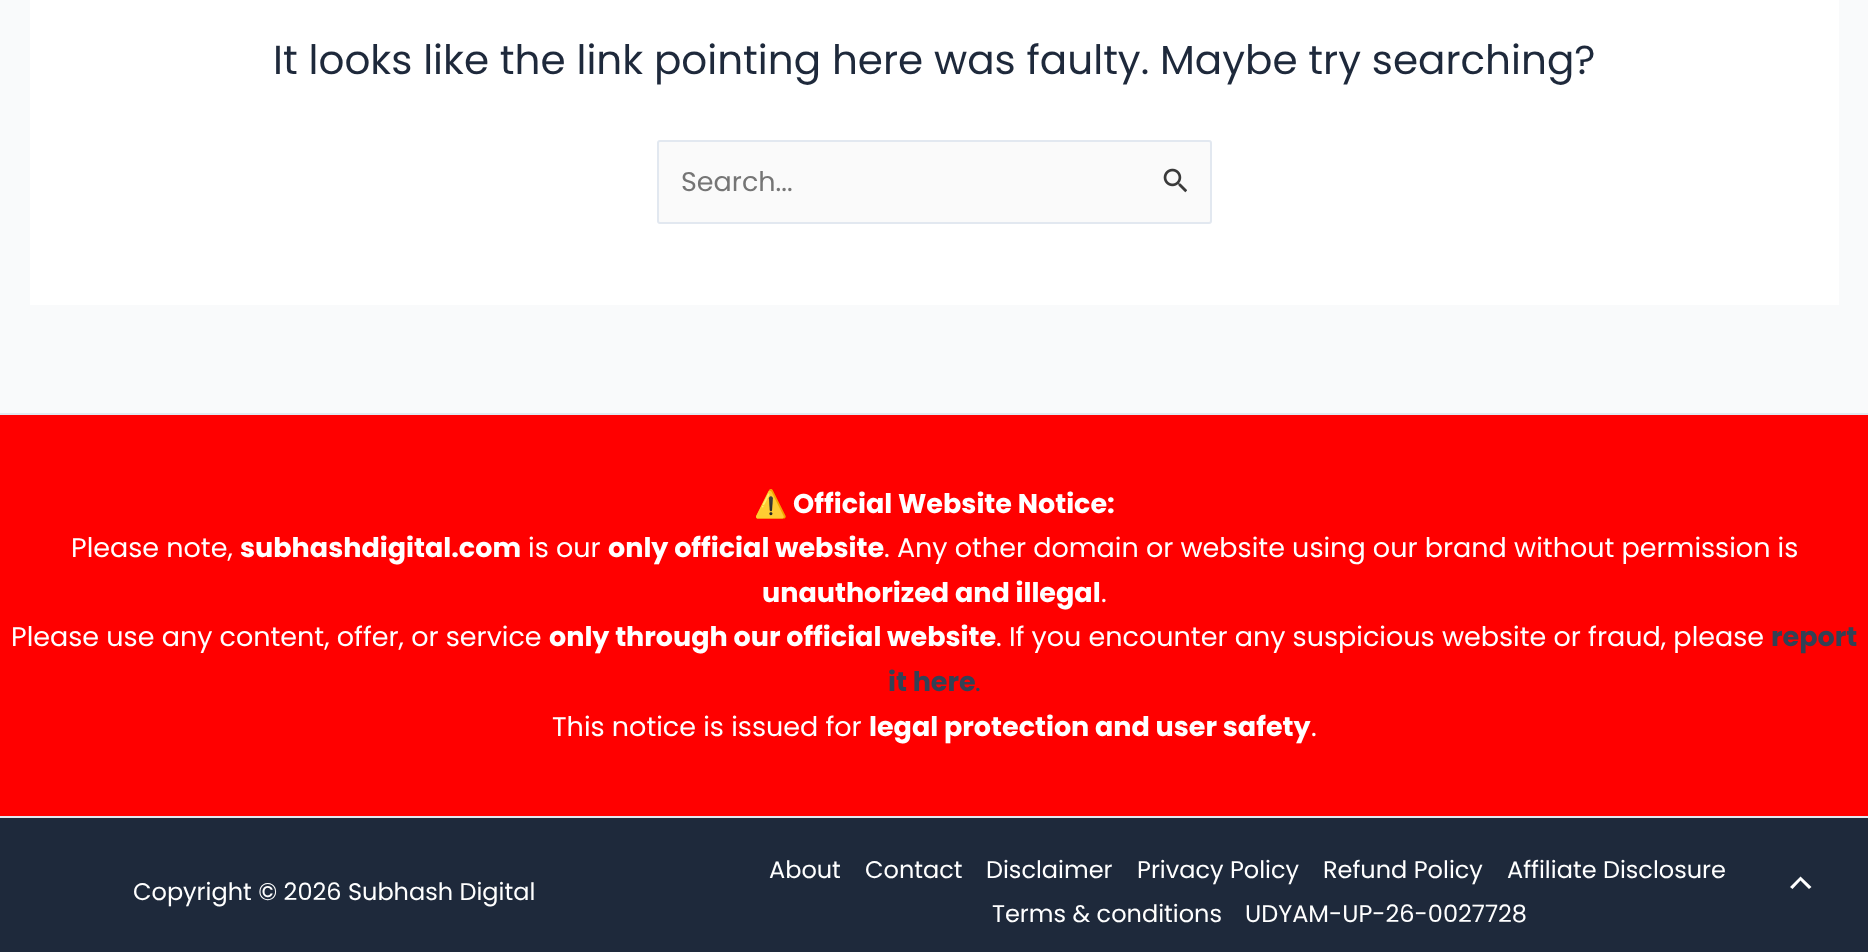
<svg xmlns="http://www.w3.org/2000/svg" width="1868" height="952">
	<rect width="100%" height="100%" fill="#F9FAFB" />
	<rect x="30" y="0" width="1809" height="305" fill="#FFFFFF" />
	<text x="273" y="74" font-family="Poppins" font-size="40.5" fill="#1E293B">It looks like the link pointing here was faulty. Maybe try searching?</text>
	<rect x="658" y="141" width="553" height="82" rx="2" fill="#FAFAFA" stroke="#E2E8F0" stroke-width="2" />
	<text x="681" y="191" font-family="Poppins" font-size="27" fill="#757575">Search...</text>
	<image x="1163" y="168" width="24" height="25" href="assets/img1.png" />
	<rect x="0" y="415" width="1868" height="401" fill="#FF0000" />
	<rect x="0" y="413" width="1868" height="2" fill="#E2E8F0" />
	<text x="754" y="513" font-family="Noto Color Emoji" font-size="27" font-weight="700" fill="#FFFFFF">⚠️</text>
	<text x="793" y="513" font-family="Poppins" font-size="27" font-weight="700" fill="#FFFFFF">Official Website Notice:</text>
	<text x="71" y="557" font-family="Poppins" font-size="27" fill="#FFFFFF">Please note,</text>
	<text x="240" y="557" font-family="Poppins" font-size="27" font-weight="700" fill="#FFFFFF">subhashdigital.com</text>
	<text x="528" y="557" font-family="Poppins" font-size="27" fill="#FFFFFF">is our</text>
	<text x="608" y="557" font-family="Poppins" font-size="27" font-weight="700" fill="#FFFFFF">only official website</text>
	<text x="884" y="557" font-family="Poppins" font-size="27" fill="#FFFFFF">. Any other domain or website using our brand without permission is</text>
	<text x="762" y="602" font-family="Poppins" font-size="27" font-weight="700" fill="#FFFFFF">unauthorized and illegal</text>
	<g font-family="Poppins" font-size="27" fill="#FFFFFF">
		<text x="1101" y="602">.</text>
		<text x="11" y="646">Please use any content, offer, or service</text>
	</g>
	<text x="549" y="646" font-family="Poppins" font-size="27" font-weight="700" fill="#FFFFFF">only through our official website</text>
	<text x="996" y="646" font-family="Poppins" font-size="27" fill="#FFFFFF">. If you encounter any suspicious website or fraud, please</text>
	<g font-family="Poppins" font-size="27" font-weight="700" fill="#334155">
		<text x="1771" y="646">report</text>
		<text x="888" y="691">it here</text>
	</g>
	<text x="975" y="691" font-family="Poppins" font-size="27" fill="#334155">.</text>
	<text x="552" y="736" font-family="Poppins" font-size="27" fill="#FFFFFF">This notice is issued for</text>
	<text x="869" y="736" font-family="Poppins" font-size="27" font-weight="700" fill="#FFFFFF">legal protection and user safety</text>
	<text x="1311" y="736" font-family="Poppins" font-size="27" fill="#FFFFFF">.</text>
	<rect x="0" y="818" width="1868" height="134" fill="#1E293B" />
	<rect x="0" y="816" width="1868" height="2" fill="#E2E8F0" />
	<g font-family="Poppins" font-size="24" fill="#FFFFFF">
		<text x="133" y="900">Copyright © 2026 Subhash Digital</text>
		<text x="769" y="878">About</text>
		<text x="865" y="878">Contact</text>
		<text x="986" y="878">Disclaimer</text>
		<text x="1137" y="878">Privacy Policy</text>
		<text x="1323" y="878">Refund Policy</text>
		<text x="1507" y="878">Affiliate Disclosure</text>
		<text x="992" y="922">Terms &amp; conditions</text>
		<text x="1245" y="922">UDYAM-UP-26-0027728</text>
	</g>
	<path d="M1811.5 887L1800.5 876.5L1790 887L1792.5 889L1800.5 880.5L1809 889Z" fill="#FFFFFF" />
</svg>
